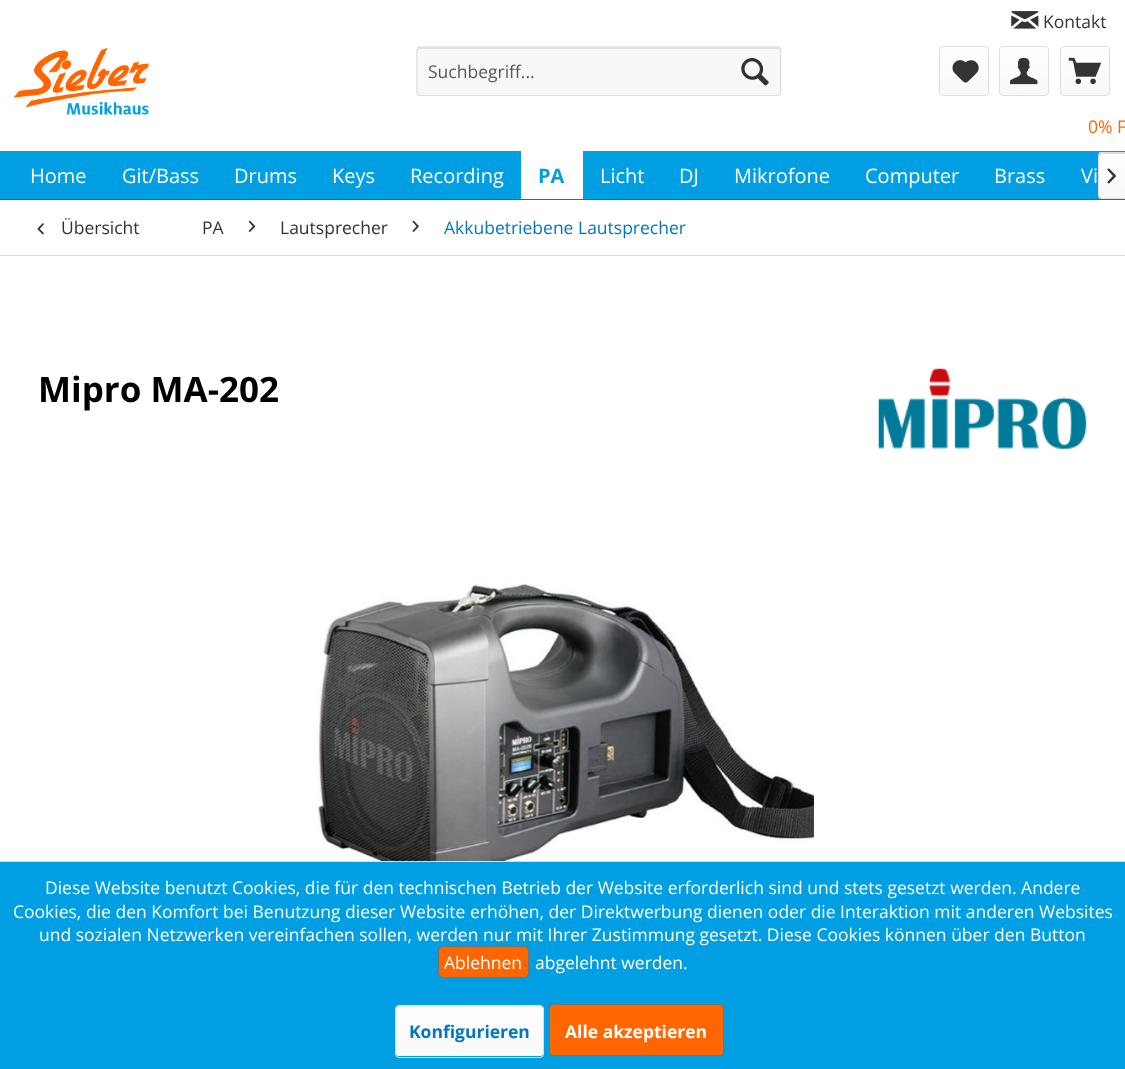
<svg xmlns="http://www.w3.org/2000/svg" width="1125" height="1069">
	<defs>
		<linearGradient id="g1" gradientUnits="userSpaceOnUse" x1="964" y1="48" x2="964" y2="95"><stop offset="0" stop-color="#FFFFFF" /><stop offset="1" stop-color="#F8F8F8" /></linearGradient>
		<linearGradient id="g2" gradientUnits="userSpaceOnUse" x1="1024" y1="48" x2="1024" y2="95"><stop offset="0" stop-color="#FFFFFF" /><stop offset="1" stop-color="#F8F8F8" /></linearGradient>
		<linearGradient id="g3" gradientUnits="userSpaceOnUse" x1="1085" y1="48" x2="1085" y2="95"><stop offset="0" stop-color="#FFFFFF" /><stop offset="1" stop-color="#F8F8F8" /></linearGradient>
		<linearGradient id="g4" gradientUnits="userSpaceOnUse" x1="1112" y1="154" x2="1112" y2="198"><stop offset="0" stop-color="#FFFFFF" /><stop offset="1" stop-color="#F8F8F8" /></linearGradient>
		<linearGradient id="g5" gradientUnits="userSpaceOnUse" x1="469" y1="1006" x2="469" y2="1056"><stop offset="0" stop-color="#FFFFFF" /><stop offset="1" stop-color="#F8F8F8" /></linearGradient>
	</defs>
	<rect width="100%" height="100%" fill="#FFFFFF" />
	<image x="1011" y="11" width="28" height="18" href="assets/img1.png" />
	<text x="1043" y="28" font-family="Open Sans" font-size="17.5" fill="#333333">Kontakt</text>
	<image x="13" y="47" width="136" height="68" href="assets/img2.png" />
	<rect x="416" y="46" width="365" height="50" rx="4" fill="#F8F8F8" />
	<path d="M420 49H778C779 49 780 50 780 51C780 49 779 48 778 48H420C419 48 418 49 418 51C418 50 419 49 420 49Z" fill="#DEDEDE" />
	<path d="M418 48L420 47H777.5L779.5 48" fill="none" stroke="#D1D1D1" stroke-width="1.2" />
	<path d="M779.5 48L780.5 50V92.5L779.5 94.5L777.5 95.5H420L418 94.5L417 92.5V50L418 48" fill="none" stroke="#DEDEDE" stroke-width="1.2" />
	<text x="428" y="78" font-family="Open Sans" font-size="17.5" fill="#595959">Suchbegriff...</text>
	<image x="741" y="58" width="28" height="28" href="assets/img3.png" />
	<rect x="940" y="48" width="48" height="47" rx="2.5" fill="url(#g1)" />
	<rect x="939.5" y="46.5" width="49" height="49" rx="3.5" fill="none" stroke="#DEDEDE" />
	<image x="952" y="60" width="27" height="23" href="assets/img4.png" />
	<rect x="1000" y="48" width="48" height="47" rx="2.5" fill="url(#g2)" />
	<rect x="999.5" y="46.5" width="49" height="49" rx="3.5" fill="none" stroke="#DEDEDE" />
	<image x="1010" y="57" width="28" height="28" href="assets/img5.png" />
	<rect x="1061" y="48" width="48" height="47" rx="2.5" fill="url(#g3)" />
	<rect x="1060.5" y="46.5" width="49" height="49" rx="3.5" fill="none" stroke="#DEDEDE" />
	<image x="1068" y="57" width="34" height="28" href="assets/img6.png" />
	<text x="1088" y="133" font-family="Open Sans" font-size="17.5" fill="#FF6600">0% F</text>
	<rect x="0" y="199" width="1125" height="1" fill="#0277BD" />
	<rect x="0" y="151" width="1125" height="48" fill="#009FE3" />
	<g font-family="Open Sans" font-size="20" fill="#FFFFFF">
		<text x="30" y="183">Home</text>
		<text x="122" y="183">Git/Bass</text>
		<text x="234" y="183">Drums</text>
		<text x="332" y="183">Keys</text>
		<text x="410" y="183">Recording</text>
	</g>
	<rect x="521" y="151" width="62" height="48" fill="#FFFFFF" />
	<text x="538" y="183" font-family="Open Sans" font-size="20" font-weight="700" fill="#009FE3">PA</text>
	<g font-family="Open Sans" font-size="20" fill="#FFFFFF">
		<text x="600" y="183">Licht</text>
		<text x="679" y="183">DJ</text>
		<text x="734" y="183">Mikrofone</text>
		<text x="865" y="183">Computer</text>
		<text x="994" y="183">Brass</text>
		<text x="1081" y="183">Vi</text>
	</g>
	<path d="M1101.5 154H1125V198H1101.5C1100 198 1099 197 1099 195.5V156.5C1099 155 1100 154 1101.5 154Z" fill="url(#g4)" />
	<path d="M1101 152H1125V199H1101C1099 199 1098 197 1098 195V156C1098 154 1099 152 1101 152ZM1101 154H1125V198H1101C1100 198 1099 196 1099 195V156C1099 155 1100 154 1101 154Z" fill="#DEDEDE" fill-rule="evenodd" />
	<image x="1107" y="168" width="9" height="16" href="assets/img7.png" />
	<rect x="0" y="255" width="1125" height="1" fill="#DEDEDE" />
	<image x="37" y="223" width="7" height="12" href="assets/img8.png" />
	<g font-family="Open Sans" font-size="17.5" fill="#333333">
		<text x="61" y="234">Übersicht</text>
		<text x="202" y="234">PA</text>
	</g>
	<image x="248" y="220" width="8" height="12" href="assets/img9.png" />
	<text x="280" y="234" font-family="Open Sans" font-size="17.5" fill="#333333">Lautsprecher</text>
	<image x="412" y="220" width="7" height="12" href="assets/img10.png" />
	<text x="444" y="234" font-family="Open Sans" font-size="17.5" fill="#0277BD">Akkubetriebene Lautsprecher</text>
	<text x="38" y="402" font-family="Open Sans" font-size="35" font-weight="700" fill="#000000">Mipro MA-202</text>
	<image x="878" y="368" width="209" height="81" href="assets/img11.png" />
	<image x="317" y="583" width="497" height="278" href="assets/img12.png" />
	<rect x="0" y="862" width="1125" height="207" fill="#009FE3" />
	<rect x="0" y="861" width="1125" height="1" fill="#DEDEDE" />
	<g font-family="Open Sans" font-size="17.5" fill="#FFFFFF">
		<text x="45" y="894">Diese Website benutzt Cookies, die für den technischen Betrieb der Website erforderlich sind und stets gesetzt werden. Andere</text>
		<text x="13" y="918">Cookies, die den Komfort bei Benutzung dieser Website erhöhen, der Direktwerbung dienen oder die Interaktion mit anderen Websites</text>
		<text x="39" y="941">und sozialen Netzwerken vereinfachen sollen, werden nur mit Ihrer Zustimmung gesetzt. Diese Cookies können über den Button</text>
	</g>
	<rect x="438.5" y="946.5" width="90" height="31" rx="4.5" fill="#FF6600" stroke="#737171" />
	<g font-family="Open Sans" font-size="17.5" fill="#FFFFFF">
		<text x="444" y="969">Ablehnen</text>
		<text x="535" y="969">abgelehnt werden.</text>
	</g>
	<rect x="396" y="1006" width="147" height="50" rx="2.5" fill="url(#g5)" />
	<rect x="395.5" y="1005.5" width="148" height="52" rx="3.5" fill="none" stroke="#DEDEDE" />
	<text x="409" y="1038" font-family="Open Sans" font-size="17.5" font-weight="700" fill="#0277BD">Konfigurieren</text>
	<rect x="549.5" y="1004.5" width="174" height="51" rx="3.5" fill="#FF6600" stroke="#737171" />
	<text x="565" y="1038" font-family="Open Sans" font-size="17.5" font-weight="700" fill="#FFFFFF">Alle akzeptieren</text>
</svg>
